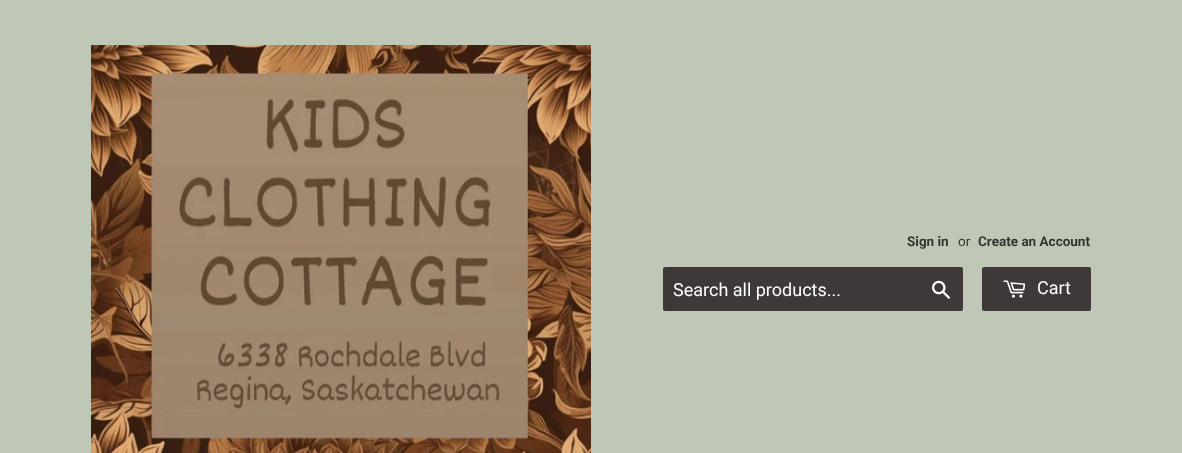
<svg xmlns="http://www.w3.org/2000/svg" width="1182" height="453">
	<rect width="100%" height="100%" fill="#BFC7B7" />
	<image x="91" y="45" width="500" height="408" href="assets/img1.png" />
	<text x="907" y="246" font-family="Roboto" font-size="13.5" font-weight="700" fill="#313634">Sign in</text>
	<text x="958" y="246" font-family="Roboto" font-size="13.5" fill="#313634">or</text>
	<text x="978" y="246" font-family="Roboto" font-size="13.5" font-weight="700" fill="#313634">Create an Account</text>
	<rect x="663" y="267" width="300" height="44" rx="2" fill="#3F3838" />
	<text x="673" y="296" font-family="Roboto" font-size="18" fill="#FFFFFF">Search all products...</text>
	<image x="932" y="280" width="18" height="19" href="assets/img2.png" />
	<rect x="982" y="267" width="109" height="44" rx="2" fill="#3F3838" />
	<image x="1003" y="280" width="23" height="18" href="assets/img3.png" />
	<text x="1037" y="294" font-family="Roboto" font-size="18" fill="#FFFFFF">Cart</text>
</svg>
